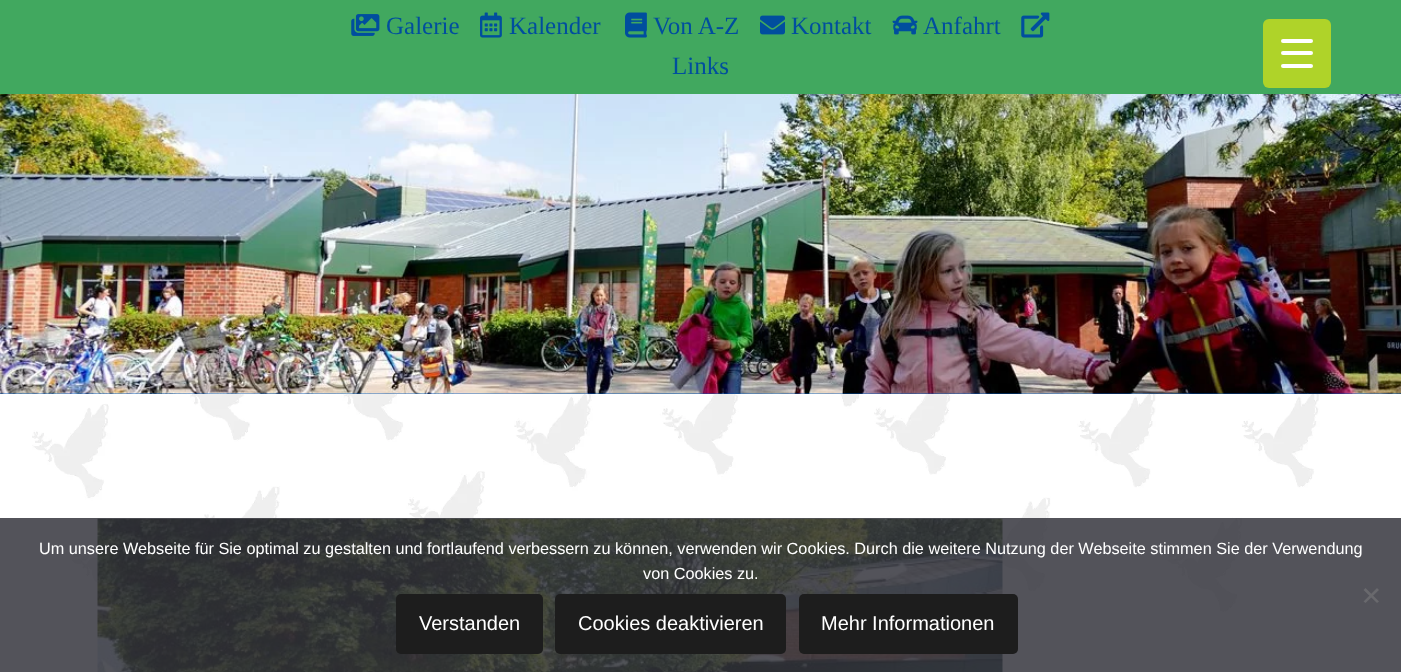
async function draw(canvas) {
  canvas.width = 1401;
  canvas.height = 672;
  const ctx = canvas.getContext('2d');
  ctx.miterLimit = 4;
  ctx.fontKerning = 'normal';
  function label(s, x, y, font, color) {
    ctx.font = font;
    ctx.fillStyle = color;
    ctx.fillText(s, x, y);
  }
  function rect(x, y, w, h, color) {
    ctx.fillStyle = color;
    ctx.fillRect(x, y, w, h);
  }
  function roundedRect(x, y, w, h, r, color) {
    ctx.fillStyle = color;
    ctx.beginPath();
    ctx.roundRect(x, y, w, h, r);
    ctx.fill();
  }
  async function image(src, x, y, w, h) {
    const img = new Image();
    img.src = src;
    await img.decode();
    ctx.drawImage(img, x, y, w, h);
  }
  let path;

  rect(0, 0, 1401, 672, '#fff');
  await image('assets/img1.png', 0, 394, 1401, 278);
  rect(0, 0, 1401, 94, '#41a85f');
  await image('assets/img2.png', 351, 14, 29, 22);
  label('Galerie', 386, 34, '25px Liberation Serif', '#004e9e');
  await image('assets/img3.png', 480, 12, 22, 26);
  label('Kalender', 509, 34, '25px Liberation Serif', '#004e9e');
  await image('assets/img4.png', 625, 12, 22, 26);
  label('Von A-Z', 653, 34, '25px Liberation Serif', '#004e9e');
  await image('assets/img5.png', 760, 15, 25, 20);
  label('Kontakt', 791, 34, '25px Liberation Serif', '#004e9e');
  await image('assets/img6.png', 892, 15, 26, 20);
  label('Anfahrt', 923, 34, '25px Liberation Serif', '#004e9e');
  await image('assets/img7.png', 1021, 12, 29, 26);
  label('Links', 672, 74, '25px Liberation Serif', '#004e9e');
  roundedRect(1263, 19, 68, 69, 6, '#afd329');
  roundedRect(1281, 51, 32, 4, 2, '#fff');
  roundedRect(1281, 39, 32, 4, 2, '#fff');
  roundedRect(1281, 64, 32, 4, 2, '#fff');
  rect(0, 393, 1401, 1, '#0058b7');
  await image('assets/img8.png', 0, 94, 1401, 300);
  await image('assets/img9.png', 97, 518, 906, 154);
  rect(0, 518, 1401, 154, '#32323ad6');
  label('Um unsere Webseite für Sie optimal zu gestalten und fortlaufend verbessern zu können, verwenden wir Cookies. Durch die weitere Nutzung der Webseite stimmen Sie der Verwendung', 39, 554, '16.25px Liberation Sans', '#fff');
  label('von Cookies zu.', 643, 579, '16.25px Liberation Sans', '#fff');
  ctx.fillStyle = '#69696d';
  path = new Path2D('M1377 588L1379 590L1365.5 603L1363.5 601.5Z');
  ctx.fill(path);
  path = new Path2D('M1363.5 590L1365.5 588L1379 601.5L1377 603Z');
  ctx.fill(path);
  roundedRect(396, 594, 147, 60, 5, '#1d1d1d');
  label('Verstanden', 419, 630, '20px Liberation Sans', '#fff');
  roundedRect(555, 594, 231, 60, 5, '#1d1d1d');
  label('Cookies deaktivieren', 578, 630, '20px Liberation Sans', '#fff');
  roundedRect(799, 594, 219, 60, 5, '#1d1d1d');
  label('Mehr Informationen', 821, 630, '20px Liberation Sans', '#fff');
}

draw(document.querySelector('canvas'));
